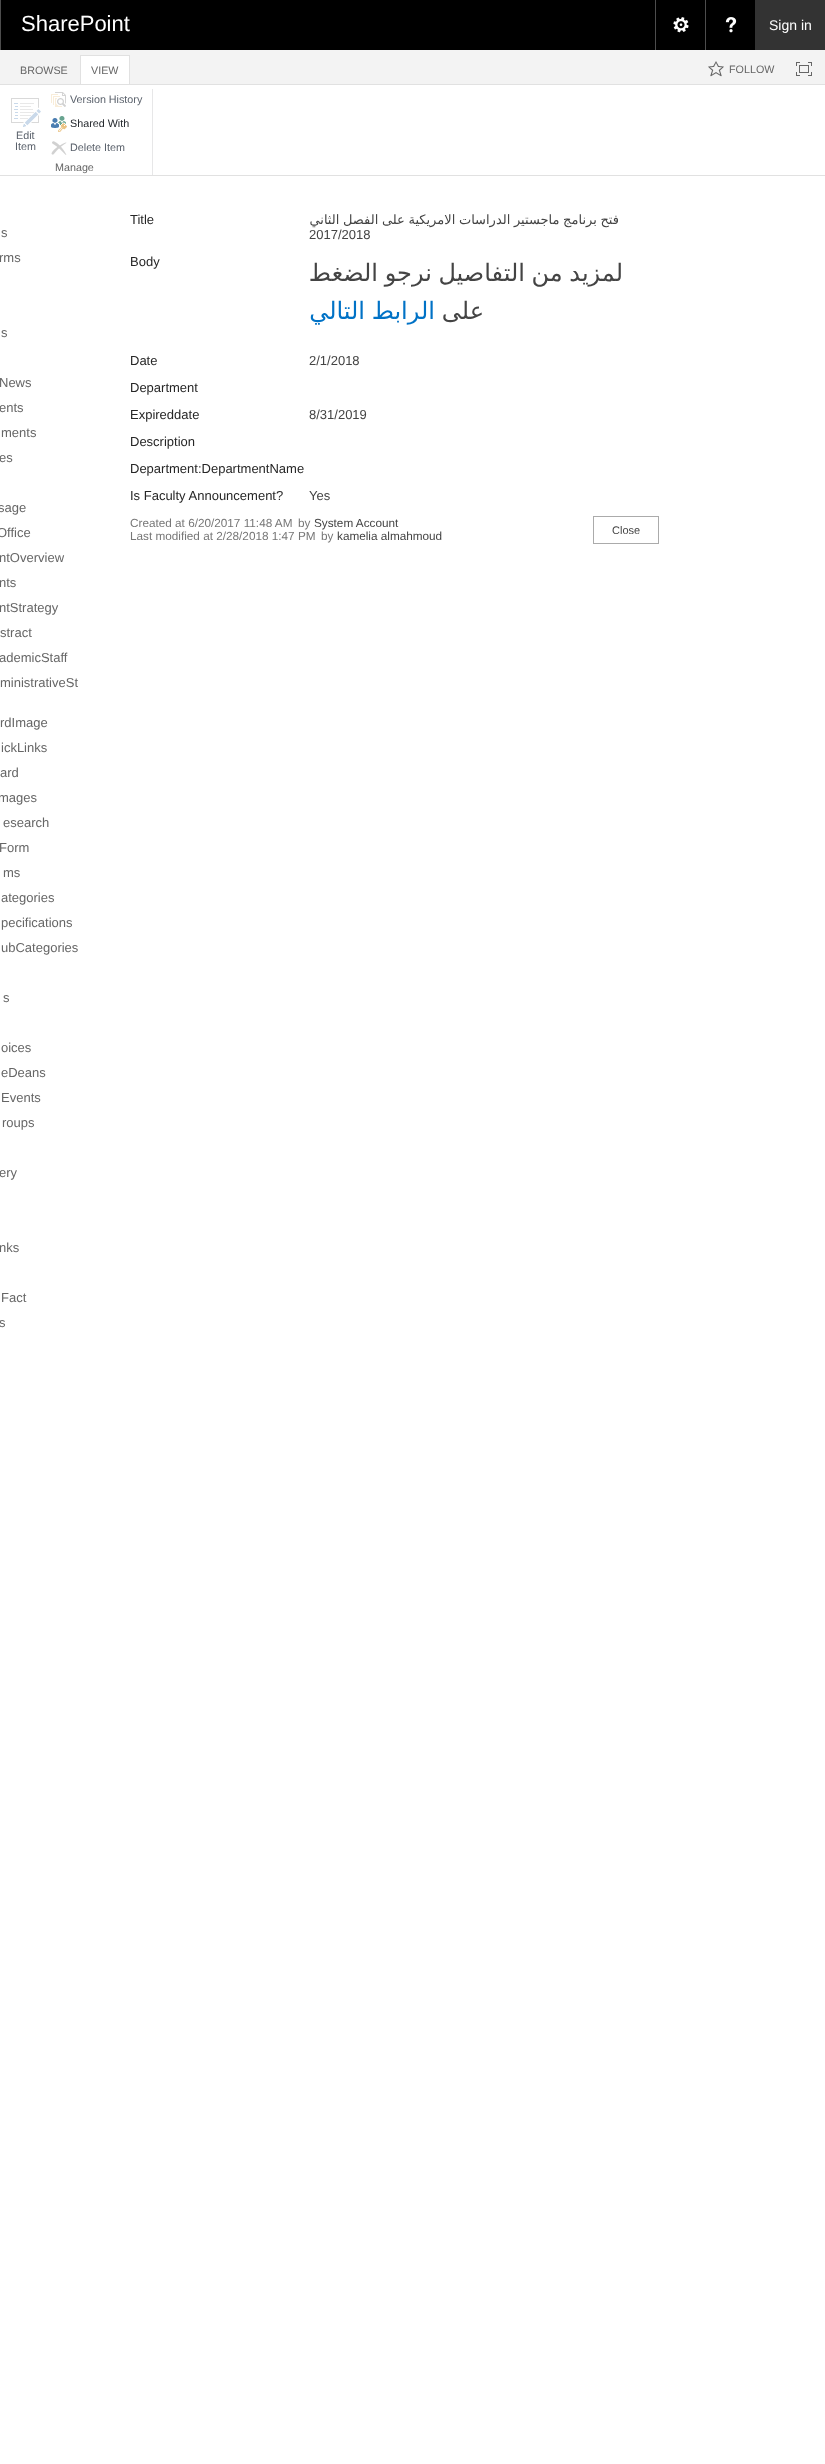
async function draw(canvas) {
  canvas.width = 825;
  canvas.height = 2464;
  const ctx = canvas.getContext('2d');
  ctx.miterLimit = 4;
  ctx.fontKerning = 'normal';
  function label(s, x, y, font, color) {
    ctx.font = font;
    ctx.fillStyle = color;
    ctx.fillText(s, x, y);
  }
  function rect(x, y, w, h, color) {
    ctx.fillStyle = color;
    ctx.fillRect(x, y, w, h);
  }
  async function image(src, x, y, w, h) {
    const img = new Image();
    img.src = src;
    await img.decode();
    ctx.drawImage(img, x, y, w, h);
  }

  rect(0, 0, 825, 2464, '#fff');
  rect(1, 0, 754, 50, '#000');
  rect(0, 0, 1, 50, '#4d4d4d');
  label('SharePoint', 21, 31, '22px Liberation Sans', '#fff');
  rect(655, 0, 1, 50, '#4d4d4d');
  await image('assets/img1.png', 673, 17, 16, 16);
  rect(705, 0, 1, 50, '#4d4d4d');
  await image('assets/img2.png', 725, 17, 12, 16);
  rect(755, 0, 70, 50, '#333');
  label('Sign in', 769, 30, '14px Liberation Sans', '#fff');
  rect(0, 50, 825, 34, '#f3f3f3');
  rect(0, 84, 825, 1, '#e1e1e1');
  label('BROWSE', 20, 74, '10.75px Liberation Sans', '#666');
  rect(81, 56, 48, 28, '#fff');
  rect(80, 55, 50, 1, '#e1e1e1');
  rect(129, 55, 1, 29, '#e1e1e1');
  rect(80, 55, 1, 29, '#e1e1e1');
  label('VIEW', 91, 74, '10.75px Liberation Sans', '#666');
  await image('assets/img3.png', 708, 61, 16, 16);
  label('FOLLOW', 729, 73, '10.75px Liberation Sans', '#666');
  await image('assets/img4.png', 796, 62, 16, 14);
  rect(0, 175, 825, 1, '#e1e1e1');
  await image('assets/img5.png', 11, 98, 30, 29);
  label('Edit', 16, 139, '10.75px Liberation Sans', '#5b626c');
  label('Item', 15, 150, '10.75px Liberation Sans', '#5b626c');
  await image('assets/img6.png', 51, 92, 15, 15);
  label('Version History', 70, 103, '10.75px Liberation Sans', '#5b626c');
  await image('assets/img7.png', 51, 116, 16, 16);
  label('Shared With', 70, 127, '10.75px Liberation Sans', '#23272c');
  await image('assets/img8.png', 51, 141, 16, 14);
  label('Delete Item', 70, 151, '10.75px Liberation Sans', '#5b626c');
  label('Manage', 55, 171, '10.75px Liberation Sans', '#666');
  rect(152, 89, 1, 86, '#e7e7e8');
  label('s', 1, 237, '13px Liberation Sans', '#666');
  label('rms', -1, 262, '13px Liberation Sans', '#666');
  label('s', 1, 337, '13px Liberation Sans', '#666');
  label('News', -1, 387, '13px Liberation Sans', '#666');
  label('ents', -1, 412, '13px Liberation Sans', '#666');
  label('ments', 1, 437, '13px Liberation Sans', '#666');
  label('es', -1, 462, '13px Liberation Sans', '#666');
  label('sage', -2, 512, '13px Liberation Sans', '#666');
  label('Office', -3, 537, '13px Liberation Sans', '#666');
  label('ntOverview', -1, 562, '13px Liberation Sans', '#666');
  label('nts', -1, 587, '13px Liberation Sans', '#666');
  label('ntStrategy', -1, 612, '13px Liberation Sans', '#666');
  label('stract', 0, 637, '13px Liberation Sans', '#666');
  label('ademicStaff', -1, 662, '13px Liberation Sans', '#666');
  label('ministrativeSt', 0, 687, '13px Liberation Sans', '#666');
  label('rdImage', 0, 727, '13px Liberation Sans', '#666');
  label('ickLinks', 1, 752, '13px Liberation Sans', '#666');
  label('ard', 0, 777, '13px Liberation Sans', '#666');
  label('mages', -2, 802, '13px Liberation Sans', '#666');
  label('esearch', 3, 827, '13px Liberation Sans', '#666');
  label('Form', -1, 852, '13px Liberation Sans', '#666');
  label('ms', 3, 877, '13px Liberation Sans', '#666');
  label('ategories', 1, 902, '13px Liberation Sans', '#666');
  label('pecifications', 1, 927, '13px Liberation Sans', '#666');
  label('ubCategories', 1, 952, '13px Liberation Sans', '#666');
  label('s', 3, 1002, '13px Liberation Sans', '#666');
  label('oices', 1, 1052, '13px Liberation Sans', '#666');
  label('eDeans', 1, 1077, '13px Liberation Sans', '#666');
  label('Events', 1, 1102, '13px Liberation Sans', '#666');
  label('roups', 2, 1127, '13px Liberation Sans', '#666');
  label('ery', -1, 1177, '13px Liberation Sans', '#666');
  label('nks', -1, 1252, '13px Liberation Sans', '#666');
  label('Fact', 1, 1302, '13px Liberation Sans', '#666');
  label('s', -1, 1327, '13px Liberation Sans', '#666');
  label('Title', 130, 224, '13px Liberation Sans', '#262626');
  ctx.wordSpacing = '-0.5px';
  ctx.direction = 'rtl';
  label('فتح برنامج ماجستير الدراسات الامريكية على الفصل الثاني', 619, 224, '13px DejaVu Sans', '#444');
  ctx.wordSpacing = '0px';
  ctx.direction = 'ltr';
  label('2017/2018', 309, 239, '13px Liberation Sans', '#444');
  label('Body', 130, 266, '13px Liberation Sans', '#262626');
  ctx.wordSpacing = '-1px';
  ctx.direction = 'rtl';
  label('لمزيد من التفاصيل نرجو الضغط', 623, 281, '24px DejaVu Sans', '#444');
  label('الرابط التالي', 435, 319, '24px DejaVu Sans', '#0072c6');
  ctx.wordSpacing = '0px';
  label('على', 484, 319, '24px DejaVu Sans', '#444');
  ctx.direction = 'ltr';
  label('Date', 130, 365, '13px Liberation Sans', '#262626');
  label('2/1/2018', 309, 365, '13px Liberation Sans', '#444');
  label('Department', 130, 392, '13px Liberation Sans', '#262626');
  label('Expireddate', 130, 419, '13px Liberation Sans', '#262626');
  label('8/31/2019', 309, 419, '13px Liberation Sans', '#444');
  label('Description', 130, 446, '13px Liberation Sans', '#262626');
  label('Department:DepartmentName', 130, 473, '13px Liberation Sans', '#262626');
  label('Is Faculty Announcement?', 130, 500, '13px Liberation Sans', '#262626');
  label('Yes', 309, 500, '13px Liberation Sans', '#444');
  label('Created at 6/20/2017 11:48 AM', 130, 527, '11.75px Liberation Sans', '#777');
  label('by', 298, 527, '11.75px Liberation Sans', '#777');
  label('System Account', 314, 527, '11.75px Liberation Sans', '#444');
  label('Last modified at 2/28/2018 1:47 PM', 130, 540, '11.75px Liberation Sans', '#777');
  label('by', 321, 540, '11.75px Liberation Sans', '#777');
  label('kamelia almahmoud', 337, 540, '11.75px Liberation Sans', '#444');
  ctx.strokeStyle = '#ababab';
  ctx.strokeRect(593.5, 516.5, 65, 27);
  label('Close', 612, 534, '11px Liberation Sans', '#444');
}

draw(document.querySelector('canvas'));
